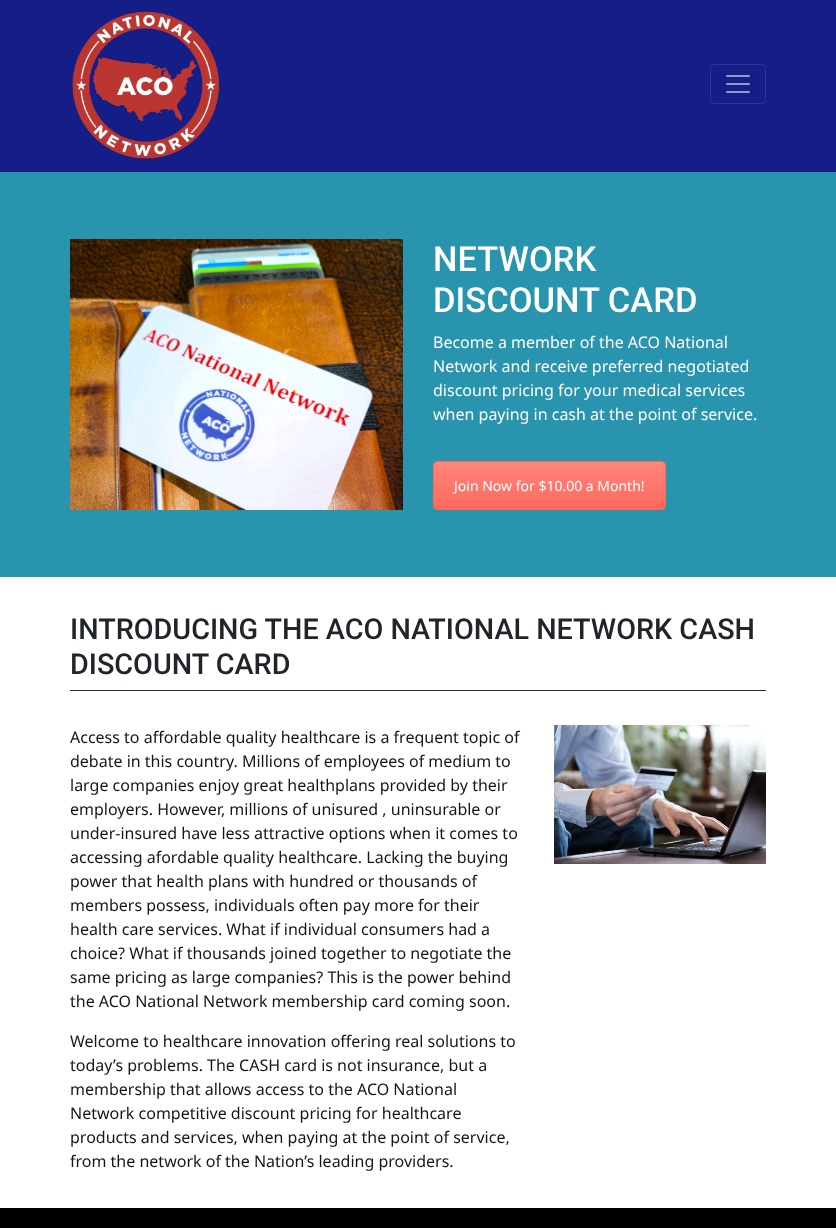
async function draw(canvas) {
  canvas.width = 836;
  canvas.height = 1228;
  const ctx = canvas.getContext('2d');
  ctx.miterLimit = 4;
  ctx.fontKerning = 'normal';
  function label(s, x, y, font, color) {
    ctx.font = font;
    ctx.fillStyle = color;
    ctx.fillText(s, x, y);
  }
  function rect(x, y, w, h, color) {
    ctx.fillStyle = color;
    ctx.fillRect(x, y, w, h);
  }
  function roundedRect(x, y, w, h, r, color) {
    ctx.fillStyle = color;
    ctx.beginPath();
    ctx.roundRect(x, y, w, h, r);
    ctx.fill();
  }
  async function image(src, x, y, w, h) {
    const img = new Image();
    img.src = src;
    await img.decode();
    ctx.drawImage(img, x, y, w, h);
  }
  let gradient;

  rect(0, 0, 836, 1228, '#fff');
  rect(0, 0, 836, 172, '#141e86');
  await image('assets/img1.png', 72, 11, 148, 148);
  ctx.beginPath();
  ctx.roundRect(710.5, 64.5, 55, 39, 3.5);
  ctx.strokeStyle = '#2c3592';
  ctx.stroke();
  await image('assets/img2.png', 726, 75, 24, 18);
  rect(0, 172, 836, 405, '#2994ae');
  await image('assets/img3.png', 70, 239, 333, 271);
  label('NETWORK', 433, 271, '500 34.5px Roboto', '#fff');
  label('DISCOUNT CARD', 433, 312, '500 34.5px Roboto', '#fff');
  label('Become a member of the ACO National', 433, 348, '16px Noto Sans', '#fff');
  label('Network and receive preferred negotiated', 433, 372, '16px Noto Sans', '#fff');
  label('discount pricing for your medical services', 433, 396, '16px Noto Sans', '#fff');
  label('when paying in cash at the point of service.', 433, 420, '16px Noto Sans', '#fff');
  roundedRect(433, 461, 233, 49, 5, '#ff675b');
  ctx.save();
  ctx.beginPath();
  ctx.roundRect(433, 461, 233, 49, 5);
  ctx.clip();
  gradient = ctx.createLinearGradient(550, 462, 550, 509);
  gradient.addColorStop(0, '#ffffff33');
  gradient.addColorStop(1, '#ffffff03');
  ctx.fillStyle = gradient;
  ctx.fillRect(433, 462, 233, 44);
  ctx.restore();
  ctx.beginPath();
  ctx.roundRect(433.5, 461.5, 232, 48, 4.5);
  ctx.strokeStyle = '#ff675b';
  ctx.stroke();
  label('Join Now for $10.00 a Month!', 454, 491, '14px Noto Sans', '#fff');
  label('INTRODUCING THE ACO NATIONAL NETWORK CASH', 70, 639, '500 28.75px Roboto', '#212529');
  label('DISCOUNT CARD', 70, 674, '500 28.75px Roboto', '#212529');
  rect(70, 690, 696, 1, '#2a2a2a');
  label('Access to affordable quality healthcare is a frequent topic of', 70, 743, '16px Noto Sans', '#161616');
  label('debate in this country. Millions of employees of medium to', 70, 767, '16px Noto Sans', '#161616');
  label('large companies enjoy great healthplans provided by their', 70, 791, '16px Noto Sans', '#161616');
  label('employers. However, millions of unisured , uninsurable or', 70, 815, '16px Noto Sans', '#161616');
  label('under-insured have less attractive options when it comes to', 70, 839, '16px Noto Sans', '#161616');
  label('accessing afordable quality healthcare. Lacking the buying', 70, 863, '16px Noto Sans', '#161616');
  label('power that health plans with hundred or thousands of', 70, 887, '16px Noto Sans', '#161616');
  label('members possess, individuals often pay more for their', 70, 911, '16px Noto Sans', '#161616');
  label('health care services. What if individual consumers had a', 70, 935, '16px Noto Sans', '#161616');
  label('choice? What if thousands joined together to negotiate the', 70, 959, '16px Noto Sans', '#161616');
  label('same pricing as large companies? This is the power behind', 70, 983, '16px Noto Sans', '#161616');
  label('the ACO National Network membership card coming soon.', 70, 1007, '16px Noto Sans', '#161616');
  label('Welcome to healthcare innovation offering real solutions to', 70, 1047, '16px Noto Sans', '#161616');
  label('today’s problems. The CASH card is not insurance, but a', 70, 1071, '16px Noto Sans', '#161616');
  label('membership that allows access to the ACO National', 70, 1095, '16px Noto Sans', '#161616');
  label('Network competitive discount pricing for healthcare', 70, 1119, '16px Noto Sans', '#161616');
  label('products and services, when paying at the point of service,', 70, 1143, '16px Noto Sans', '#161616');
  label('from the network of the Nation’s leading providers.', 70, 1167, '16px Noto Sans', '#161616');
  await image('assets/img4.png', 554, 725, 212, 139);
  rect(0, 1208, 836, 20, '#000');
}

draw(document.querySelector('canvas'));
